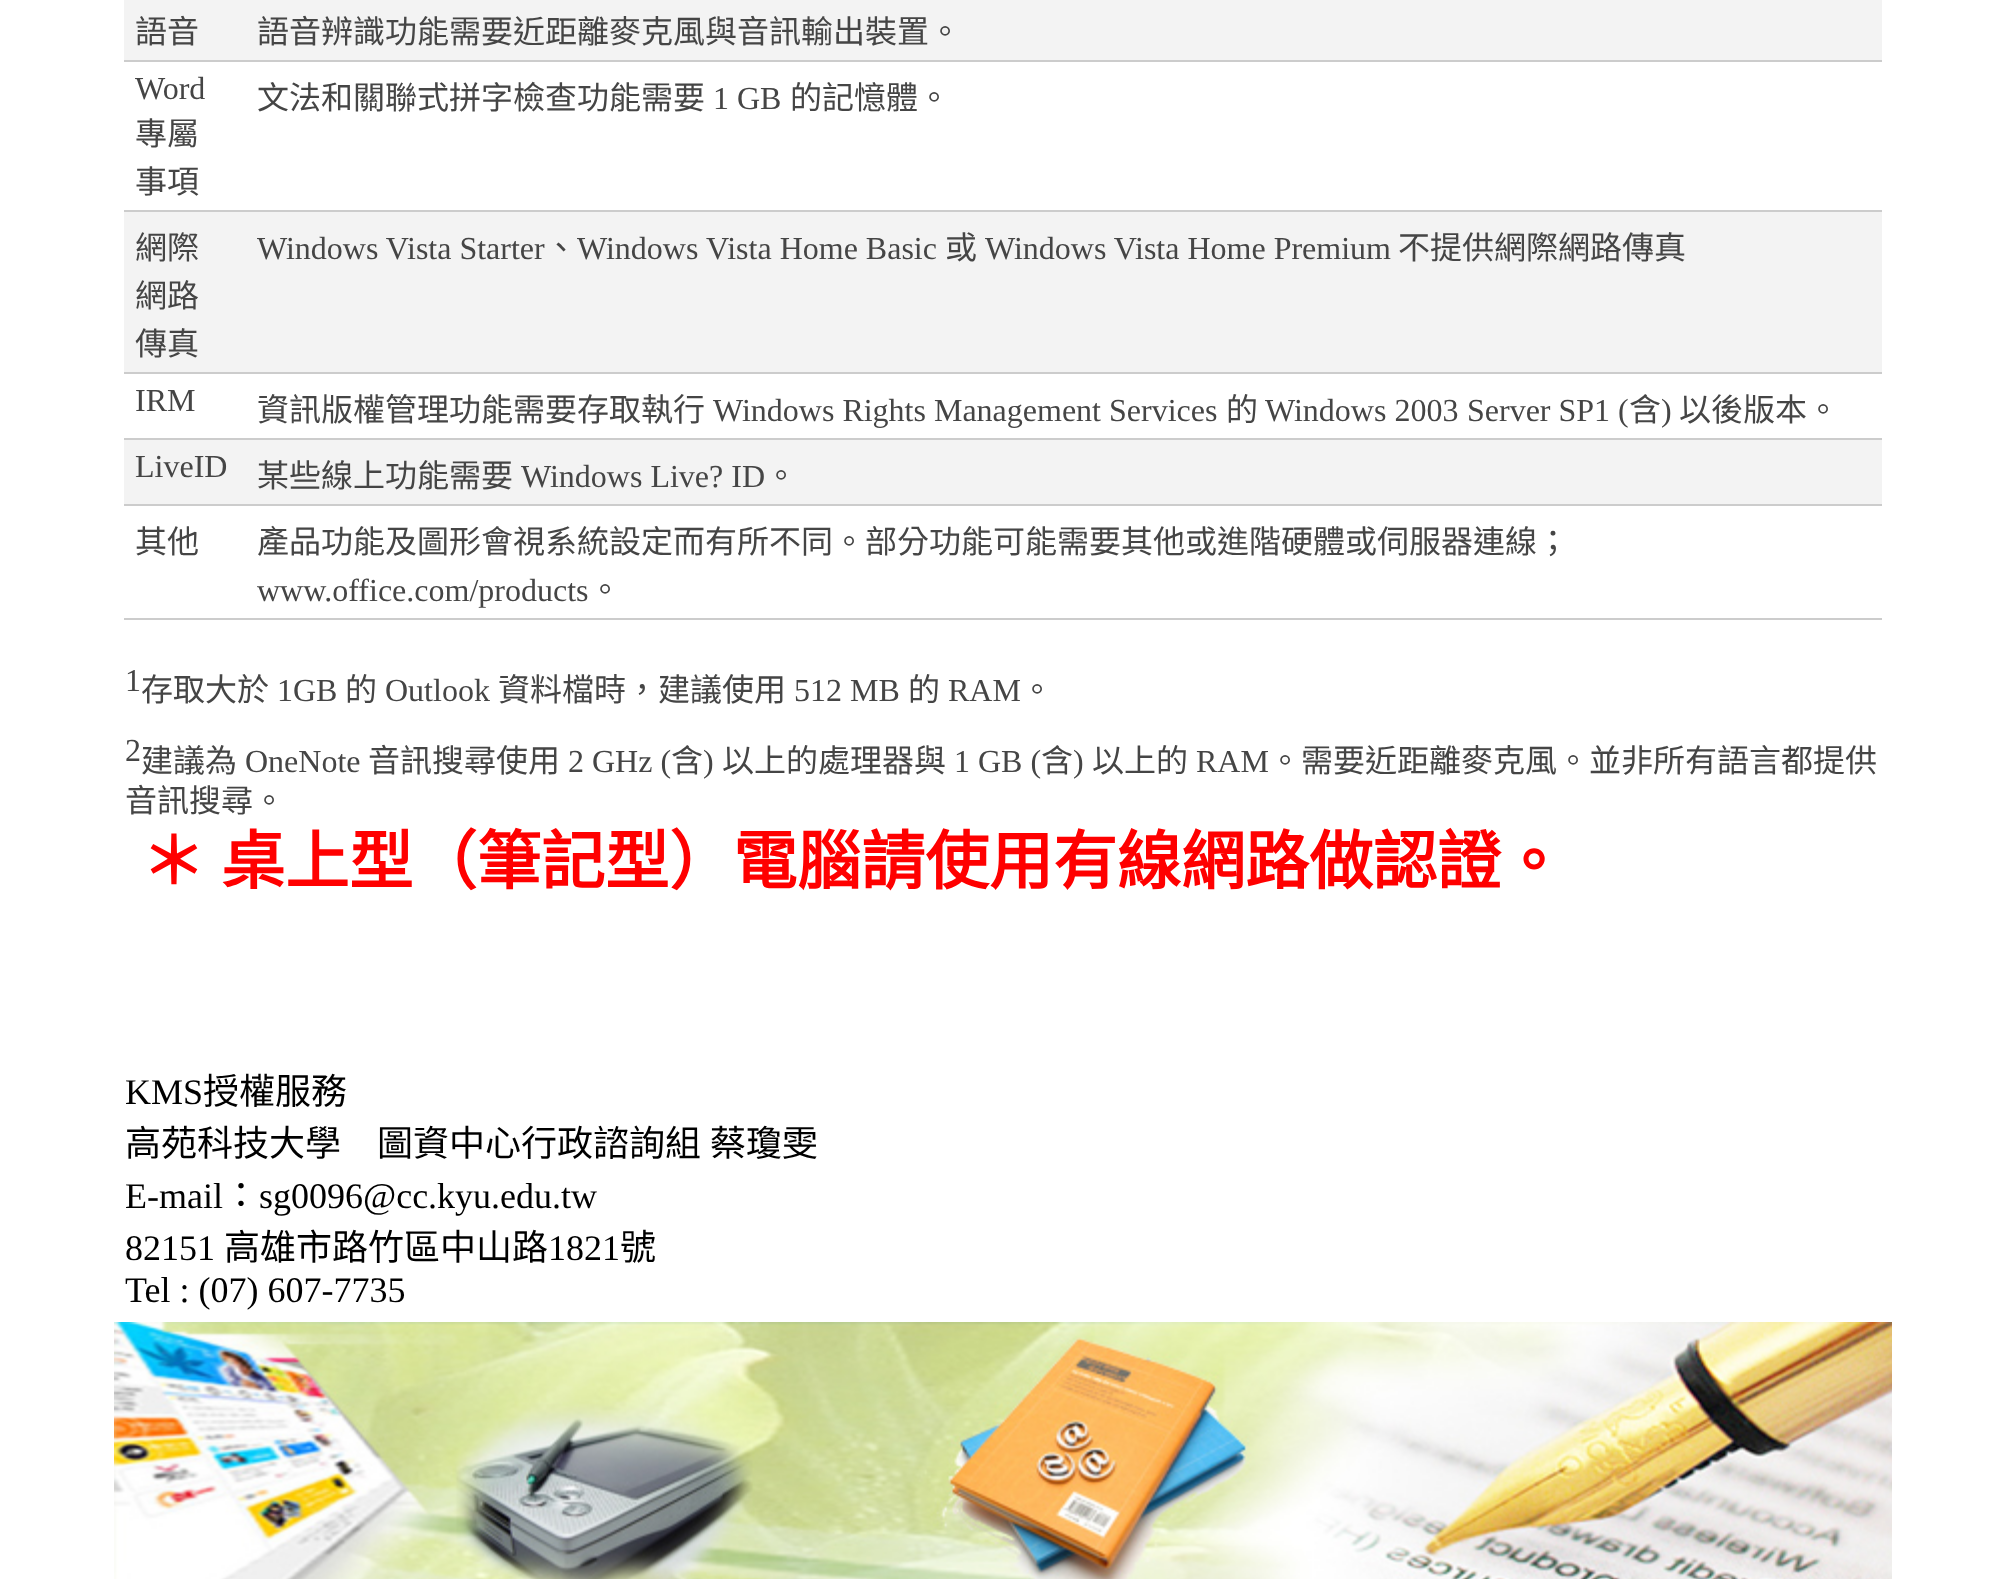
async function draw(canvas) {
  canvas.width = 2005;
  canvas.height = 1579;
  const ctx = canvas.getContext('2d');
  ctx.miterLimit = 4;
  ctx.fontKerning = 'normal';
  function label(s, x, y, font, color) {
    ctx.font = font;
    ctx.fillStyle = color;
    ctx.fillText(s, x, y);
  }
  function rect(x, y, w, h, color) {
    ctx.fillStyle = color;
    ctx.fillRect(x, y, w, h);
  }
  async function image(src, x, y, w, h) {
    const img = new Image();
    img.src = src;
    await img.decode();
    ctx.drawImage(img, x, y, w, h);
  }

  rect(0, 0, 2005, 1579, '#fff');
  rect(124, 0, 1758, 60, '#f3f3f3');
  rect(124, 60, 1758, 2, '#ccc');
  label('語音', 135, 43, '32px Noto Sans CJK TC', '#454545');
  label('語音辨識功能需要近距離麥克風與音訊輸出裝置。', 257, 43, '32px Noto Sans CJK TC', '#454545');
  label('Word', 135, 99, '32px Liberation Serif', '#454545');
  label('專屬', 135, 145, '32px Noto Sans CJK TC', '#454545');
  label('事項', 135, 193, '32px Noto Sans CJK TC', '#454545');
  label('文法和關聯式拼字檢查功能需要', 257, 109, '32px Noto Sans CJK TC', '#454545');
  label('1 GB', 713, 109, '32px Liberation Serif', '#454545');
  label('的記憶體。', 790, 109, '32px Noto Sans CJK TC', '#454545');
  rect(124, 212, 1758, 160, '#f3f3f3');
  rect(124, 210, 1758, 2, '#ccc');
  rect(124, 372, 1758, 2, '#ccc');
  label('網際', 135, 259, '32px Noto Sans CJK TC', '#454545');
  label('網路', 135, 307, '32px Noto Sans CJK TC', '#454545');
  label('傳真', 135, 355, '32px Noto Sans CJK TC', '#454545');
  label('Windows Vista Starter', 257, 259, '32px Liberation Serif', '#454545');
  label('、', 545, 259, '32px Noto Sans CJK TC', '#454545');
  label('Windows', 577, 259, '32px Liberation Serif', '#454545');
  label('Vista Home Basic', 706, 259, '32px Liberation Serif', '#454545');
  label('或', 945, 259, '32px Noto Sans CJK TC', '#454545');
  label('Windows Vista Home Premium', 985, 259, '32px Liberation Serif', '#454545');
  label('不提供網際網路傳真', 1398, 259, '32px Noto Sans CJK TC', '#454545');
  label('IRM', 135, 411, '32px Liberation Serif', '#454545');
  label('資訊版權管理功能需要存取執行', 257, 421, '32px Noto Sans CJK TC', '#454545');
  label('Windows Rights Management Services', 713, 421, '32px Liberation Serif', '#454545');
  label('的', 1226, 421, '32px Noto Sans CJK TC', '#454545');
  label('Windows 2003', 1265, 421, '32px Liberation Serif', '#454545');
  label('Server SP1 (', 1467, 421, '32px Liberation Serif', '#454545');
  label('含', 1629, 421, '32px Noto Sans CJK TC', '#454545');
  label(')', 1661, 421, '32px Liberation Serif', '#454545');
  label('以後版本。', 1679, 421, '32px Noto Sans CJK TC', '#454545');
  rect(124, 440, 1758, 64, '#f3f3f3');
  rect(124, 438, 1758, 2, '#ccc');
  rect(124, 504, 1758, 2, '#ccc');
  label('LiveID', 135, 477, '32px Liberation Serif', '#454545');
  label('某些線上功能需要', 257, 487, '32px Noto Sans CJK TC', '#454545');
  label('Windows Live? ID', 521, 487, '32px Liberation Serif', '#454545');
  label('。', 765, 487, '32px Noto Sans CJK TC', '#454545');
  rect(124, 618, 1758, 2, '#ccc');
  label('其他', 135, 553, '32px Noto Sans CJK TC', '#454545');
  label('產品功能及圖形會視系統設定而有所不同。部分功能可能需要其他或進階硬體或伺服器連線；', 257, 553, '32px Noto Sans CJK TC', '#454545');
  label('www.office.com/products', 257, 601, '32px Liberation Serif', '#454545');
  label('。', 589, 601, '32px Noto Sans CJK TC', '#454545');
  label('1', 125, 691, '32px Liberation Serif', '#454545');
  label('存取大於', 141, 701, '32px Noto Sans CJK TC', '#454545');
  label('1GB', 277, 701, '32px Liberation Serif', '#454545');
  label('的', 345, 701, '32px Noto Sans CJK TC', '#454545');
  label('Outlook', 385, 701, '32px Liberation Serif', '#454545');
  label('資料檔時，建議使用', 498, 701, '32px Noto Sans CJK TC', '#454545');
  label('512 MB', 794, 701, '32px Liberation Serif', '#454545');
  label('的', 908, 701, '32px Noto Sans CJK TC', '#454545');
  label('RAM', 948, 701, '32px Liberation Serif', '#454545');
  label('。', 1021, 701, '32px Noto Sans CJK TC', '#454545');
  label('2', 125, 761, '32px Liberation Serif', '#454545');
  label('建議為', 141, 772, '32px Noto Sans CJK TC', '#454545');
  label('OneNote', 245, 772, '32px Liberation Serif', '#454545');
  label('音訊搜尋使用', 368, 772, '32px Noto Sans CJK TC', '#454545');
  label('2 GHz (', 568, 772, '32px Liberation Serif', '#454545');
  label('含', 671, 772, '32px Noto Sans CJK TC', '#454545');
  label(')', 703, 772, '32px Liberation Serif', '#454545');
  label('以上的處理器與', 722, 772, '32px Noto Sans CJK TC', '#454545');
  label('1 GB (', 954, 772, '32px Liberation Serif', '#454545');
  label('含', 1041, 772, '32px Noto Sans CJK TC', '#454545');
  label(')', 1073, 772, '32px Liberation Serif', '#454545');
  label('以上的', 1092, 772, '32px Noto Sans CJK TC', '#454545');
  label('RAM', 1196, 772, '32px Liberation Serif', '#454545');
  label('。需要近距離麥克風。並非所有語言都提供', 1269, 772, '32px Noto Sans CJK TC', '#454545');
  label('音訊搜尋。', 125, 812, '32px Noto Sans CJK TC', '#454545');
  label('＊', 141, 884, 'bold 64px Noto Sans CJK TC', '#f00');
  label('桌上型（筆記型）電腦請使用有線網路做認證。', 221, 884, 'bold 64px Noto Sans CJK TC', '#f00');
  label('KMS', 125, 1104, '36px Liberation Serif', '#000');
  label('授權服務', 203, 1104, '36px Noto Sans CJK TC', '#000');
  ctx.wordSpacing = '1px';
  label('高苑科技大學　圖資中心行政諮詢組 蔡瓊雯', 125, 1156, '36px Noto Sans CJK TC', '#000');
  ctx.wordSpacing = '0px';
  label('E-mail', 125, 1208, '36px Liberation Serif', '#000');
  label('：', 223, 1208, '36px Noto Sans CJK TC', '#000');
  label('sg0096@cc.kyu.edu.tw', 259, 1208, '36px Liberation Serif', '#000');
  label('82151', 125, 1260, '36px Liberation Serif', '#000');
  label('高雄市路竹區中山路', 224, 1260, '36px Noto Sans CJK TC', '#000');
  label('1821', 548, 1260, '36px Liberation Serif', '#000');
  label('號', 620, 1260, '36px Noto Sans CJK TC', '#000');
  label('Tel : (07) 607-7735', 125, 1302, '36px Liberation Serif', '#000');
  await image('assets/img1.png', 114, 1322, 1778, 257);
}

draw(document.querySelector('canvas'));
